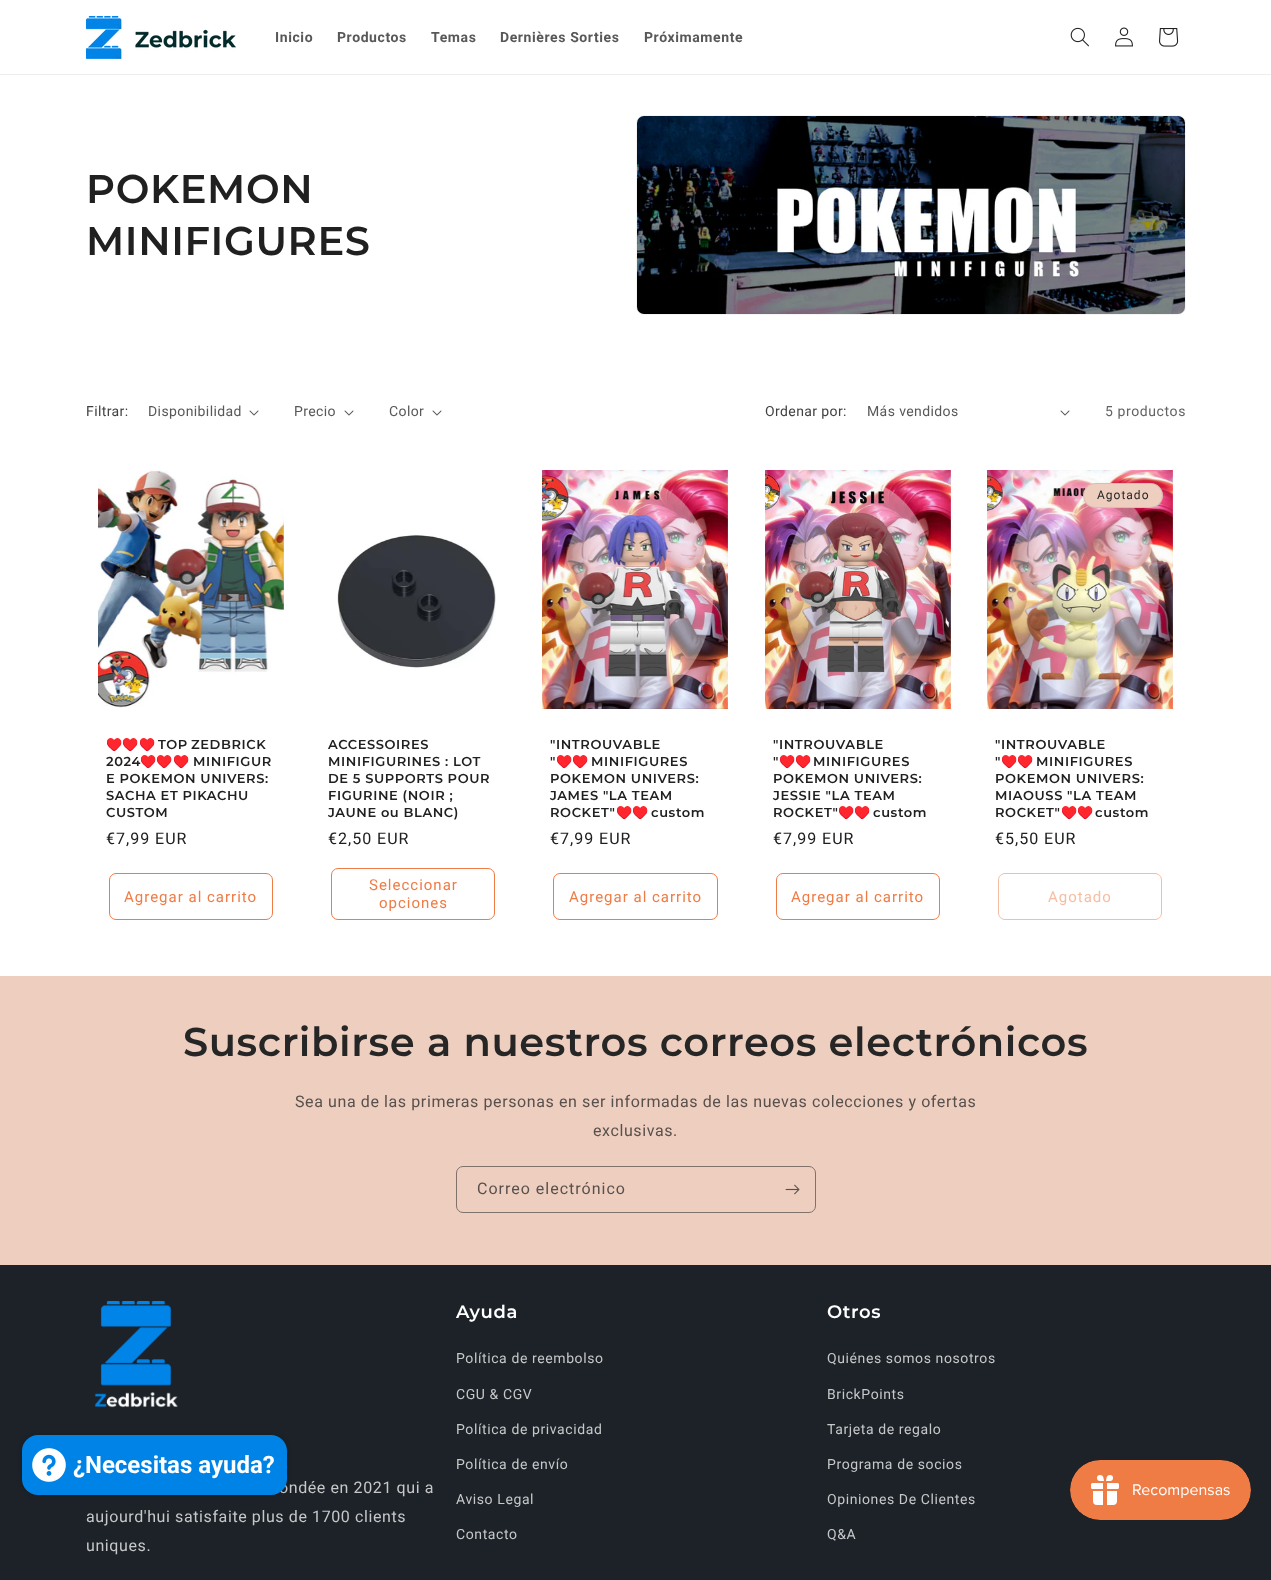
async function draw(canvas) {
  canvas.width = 1271;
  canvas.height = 1580;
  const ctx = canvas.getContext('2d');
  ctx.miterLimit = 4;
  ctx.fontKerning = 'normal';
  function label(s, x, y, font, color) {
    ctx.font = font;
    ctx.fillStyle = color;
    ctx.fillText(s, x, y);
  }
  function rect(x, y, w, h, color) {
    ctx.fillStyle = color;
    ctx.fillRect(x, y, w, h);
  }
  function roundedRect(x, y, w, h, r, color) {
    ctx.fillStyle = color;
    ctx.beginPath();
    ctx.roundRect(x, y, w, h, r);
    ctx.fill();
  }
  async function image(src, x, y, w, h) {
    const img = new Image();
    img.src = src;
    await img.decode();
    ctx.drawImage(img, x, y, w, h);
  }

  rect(0, 0, 1271, 1580, '#fff');
  rect(0, 74, 1271, 1, '#ededed');
  await image('assets/img1.png', 86, 16, 150, 43);
  ctx.letterSpacing = '0.6px';
  label('Inicio', 275, 42, 'bold 14px Roboto', '#595858');
  label('Productos', 337, 42, 'bold 14px Roboto', '#595858');
  label('Temas', 431, 42, 'bold 14px Roboto', '#595858');
  label('Dernières Sorties', 500, 42, 'bold 14px Roboto', '#595858');
  label('Próximamente', 644, 42, 'bold 14px Roboto', '#595858');
  await image('assets/img2.png', 1070, 27, 19, 20);
  await image('assets/img3.png', 1115, 27, 18, 20);
  await image('assets/img4.png', 1159, 28, 20, 19);
  label('POKEMON', 86, 203, '600 40px Montserrat', '#212020');
  label('MINIFIGURES', 86, 255, '600 40px Montserrat', '#212020');
  ctx.beginPath();
  ctx.roundRect(636.5, 115.5, 549, 199, 7.5);
  ctx.strokeStyle = '#f4f4f4';
  ctx.stroke();
  await image('assets/img5.png', 637, 116, 548, 198);
  ctx.letterSpacing = '0.4px';
  label('Filtrar:', 86, 416, '14px Roboto', '#424141');
  label('Disponibilidad', 148, 416, '14px Roboto', '#595858');
  await image('assets/img6.png', 249, 410, 10, 6);
  label('Precio', 294, 416, '14px Roboto', '#595858');
  await image('assets/img6.png', 344, 410, 10, 6);
  label('Color', 389, 416, '14px Roboto', '#595858');
  await image('assets/img6.png', 432, 410, 10, 6);
  label('Ordenar por:', 765, 416, '14px Roboto', '#424141');
  label('Más vendidos', 867, 416, '14px Roboto', '#595858');
  await image('assets/img6.png', 1060, 410, 10, 6);
  ctx.letterSpacing = '0.6px';
  label('5 productos', 1105, 416, '14px Roboto', '#646363');
  await image('assets/img7.png', 98, 470, 186, 238);
  label('♥️♥️♥️', 106, 749, 'bold 13px Noto Color Emoji', '#212020');
  ctx.wordSpacing = '-1px';
  label('TOP ZEDBRICK', 158, 749, '600 13px Montserrat', '#212020');
  ctx.wordSpacing = '0px';
  label('2024', 106, 766, '600 13px Montserrat', '#212020');
  label('♥️♥️♥️', 140, 766, 'bold 13px Noto Color Emoji', '#212020');
  label('MINIFIGUR', 193, 766, '600 13px Montserrat', '#212020');
  label('E POKEMON UNIVERS:', 106, 783, '600 13px Montserrat', '#212020');
  label('SACHA ET PIKACHU', 106, 800, '600 13px Montserrat', '#212020');
  label('CUSTOM', 106, 817, '600 13px Montserrat', '#212020');
  ctx.letterSpacing = '1px';
  label('€7,99 EUR', 106, 844, '16px Roboto', '#212020');
  ctx.beginPath();
  ctx.roundRect(109.5, 873.5, 163, 46, 6.5);
  ctx.strokeStyle = '#ef7b45';
  ctx.stroke();
  label('Agregar al carrito', 124, 902, '15px Roboto', '#ef7b45');
  await image('assets/img8.png', 337, 534, 159, 134);
  ctx.letterSpacing = '0.6px';
  label('ACCESSOIRES', 328, 749, '600 13px Montserrat', '#212020');
  label('MINIFIGURINES : LOT', 328, 766, '600 13px Montserrat', '#212020');
  label('DE 5 SUPPORTS POUR', 328, 783, '600 13px Montserrat', '#212020');
  label('FIGURINE (NOIR ;', 328, 800, '600 13px Montserrat', '#212020');
  label('JAUNE ou BLANC)', 328, 817, '600 13px Montserrat', '#212020');
  ctx.letterSpacing = '1px';
  label('€2,50 EUR', 328, 844, '16px Roboto', '#212020');
  ctx.beginPath();
  ctx.roundRect(331.5, 868.5, 163, 51, 6.5);
  ctx.stroke();
  label('Seleccionar', 369, 890, '15px Roboto', '#ef7b45');
  label('opciones', 379, 908, '15px Roboto', '#ef7b45');
  await image('assets/img9.png', 542, 470, 186, 239);
  ctx.letterSpacing = '0.6px';
  label('"INTROUVABLE', 550, 749, '600 13px Montserrat', '#212020');
  label('"', 550, 766, '600 13px Montserrat', '#212020');
  label('♥️♥️', 556, 766, 'bold 13px Noto Color Emoji', '#212020');
  label('MINIFIGURES', 591, 766, '600 13px Montserrat', '#212020');
  label('POKEMON UNIVERS:', 550, 783, '600 13px Montserrat', '#212020');
  label('JAMES "LA TEAM', 550, 800, '600 13px Montserrat', '#212020');
  label('ROCKET"', 550, 817, '600 13px Montserrat', '#212020');
  label('♥️♥️', 616, 817, 'bold 13px Noto Color Emoji', '#212020');
  label('custom', 651, 817, '600 13px Montserrat', '#212020');
  ctx.letterSpacing = '1px';
  label('€7,99 EUR', 550, 844, '16px Roboto', '#212020');
  ctx.beginPath();
  ctx.roundRect(553.5, 873.5, 164, 46, 6.5);
  ctx.stroke();
  label('Agregar al carrito', 569, 902, '15px Roboto', '#ef7b45');
  await image('assets/img10.png', 765, 470, 186, 239);
  ctx.letterSpacing = '0.6px';
  label('"INTROUVABLE', 773, 749, '600 13px Montserrat', '#212020');
  label('"', 773, 766, '600 13px Montserrat', '#212020');
  label('♥️♥️', 779, 766, 'bold 13px Noto Color Emoji', '#212020');
  label('MINIFIGURES', 813, 766, '600 13px Montserrat', '#212020');
  label('POKEMON UNIVERS:', 773, 783, '600 13px Montserrat', '#212020');
  label('JESSIE "LA TEAM', 773, 800, '600 13px Montserrat', '#212020');
  label('ROCKET"', 773, 817, '600 13px Montserrat', '#212020');
  label('♥️♥️', 838, 817, 'bold 13px Noto Color Emoji', '#212020');
  label('custom', 873, 817, '600 13px Montserrat', '#212020');
  ctx.letterSpacing = '1px';
  label('€7,99 EUR', 773, 844, '16px Roboto', '#212020');
  ctx.beginPath();
  ctx.roundRect(776.5, 873.5, 163, 46, 6.5);
  ctx.stroke();
  label('Agregar al carrito', 791, 902, '15px Roboto', '#ef7b45');
  await image('assets/img11.png', 987, 470, 186, 239);
  roundedRect(1083, 483, 80, 25, 12.5, '#edcebf');
  ctx.beginPath();
  ctx.roundRect(1083.5, 483.5, 79, 24, 12);
  ctx.strokeStyle = '#2626261a';
  ctx.stroke();
  label('Agotado', 1097, 499, '12px Roboto', '#262626');
  ctx.letterSpacing = '0.6px';
  label('"INTROUVABLE', 995, 749, '600 13px Montserrat', '#212020');
  label('"', 995, 766, '600 13px Montserrat', '#212020');
  label('♥️♥️', 1001, 766, 'bold 13px Noto Color Emoji', '#212020');
  label('MINIFIGURES', 1036, 766, '600 13px Montserrat', '#212020');
  label('POKEMON UNIVERS:', 995, 783, '600 13px Montserrat', '#212020');
  label('MIAOUSS "LA TEAM', 995, 800, '600 13px Montserrat', '#212020');
  label('ROCKET"', 995, 817, '600 13px Montserrat', '#212020');
  label('♥️♥️', 1061, 817, 'bold 13px Noto Color Emoji', '#212020');
  label('custom', 1095, 817, '600 13px Montserrat', '#212020');
  ctx.letterSpacing = '1px';
  label('€5,50 EUR', 995, 844, '16px Roboto', '#212020');
  ctx.beginPath();
  ctx.roundRect(998.5, 873.5, 163, 46, 6.5);
  ctx.strokeStyle = '#f7bda2';
  ctx.stroke();
  label('Agotado', 1048, 902, '15px Roboto', '#f7bda2');
  rect(0, 976, 1271, 289, '#edcebf');
  ctx.letterSpacing = '0.6px';
  label('Suscribirse a nuestros correos electrónicos', 183, 1056, '600 40px Montserrat', '#262626');
  label('Sea una de las primeras personas en ser informadas de las nuevas colecciones y ofertas', 295, 1107, '16px Roboto', '#58504c');
  label('exclusivas.', 593, 1136, '16px Roboto', '#58504c');
  ctx.beginPath();
  ctx.roundRect(456.5, 1166.5, 359, 46, 6.5);
  ctx.strokeStyle = '#80726b';
  ctx.stroke();
  ctx.letterSpacing = '1px';
  label('Correo electrónico', 477, 1194, '16px Roboto', '#58504c');
  await image('assets/img12.png', 785, 1184, 15, 11);
  rect(0, 1265, 1271, 315, '#1c2228');
  await image('assets/img13.png', 94, 1301, 84, 107);
  ctx.letterSpacing = '0.6px';
  label('ondée en 2021 qui a', 279, 1493, '16px Roboto', '#c6c8c9');
  label('aujourd\'hui satisfaite plus de 1700 clients', 86, 1522, '16px Roboto', '#c6c8c9');
  label('uniques.', 86, 1551, '16px Roboto', '#c6c8c9');
  label('Ayuda', 456, 1318, '600 18px Montserrat', '#fff');
  label('Política de reembolso', 456, 1363, '14px Roboto', '#c6c8c9');
  label('CGU & CGV', 456, 1399, '14px Roboto', '#c6c8c9');
  label('Política de privacidad', 456, 1434, '14px Roboto', '#c6c8c9');
  label('Política de envío', 456, 1469, '14px Roboto', '#c6c8c9');
  label('Aviso Legal', 456, 1504, '14px Roboto', '#c6c8c9');
  label('Contacto', 456, 1539, '14px Roboto', '#c6c8c9');
  label('Otros', 827, 1318, '600 18px Montserrat', '#fff');
  label('Quiénes somos nosotros', 827, 1363, '14px Roboto', '#c6c8c9');
  label('BrickPoints', 827, 1399, '14px Roboto', '#c6c8c9');
  label('Tarjeta de regalo', 827, 1434, '14px Roboto', '#c6c8c9');
  label('Programa de socios', 827, 1469, '14px Roboto', '#c6c8c9');
  label('Opiniones De Clientes', 827, 1504, '14px Roboto', '#c6c8c9');
  label('Q&A', 827, 1539, '14px Roboto', '#c6c8c9');
  ctx.fillStyle = '#00000026';
  ctx.filter = 'blur(2.5px)';
  ctx.beginPath();
  ctx.roundRect(22, 1435, 265, 60, 16);
  ctx.fill();
  ctx.filter = 'none';
  roundedRect(22, 1435, 265, 60, 16, '#0083e6');
  await image('assets/img14.png', 32, 1448, 34, 34);
  ctx.letterSpacing = '0px';
  label('¿Necesitas ayuda?', 73, 1473, 'bold 24px Roboto', '#fff');
  await image('assets/img15.png', 1070, 1460, 181, 60);
}

draw(document.querySelector('canvas'));
